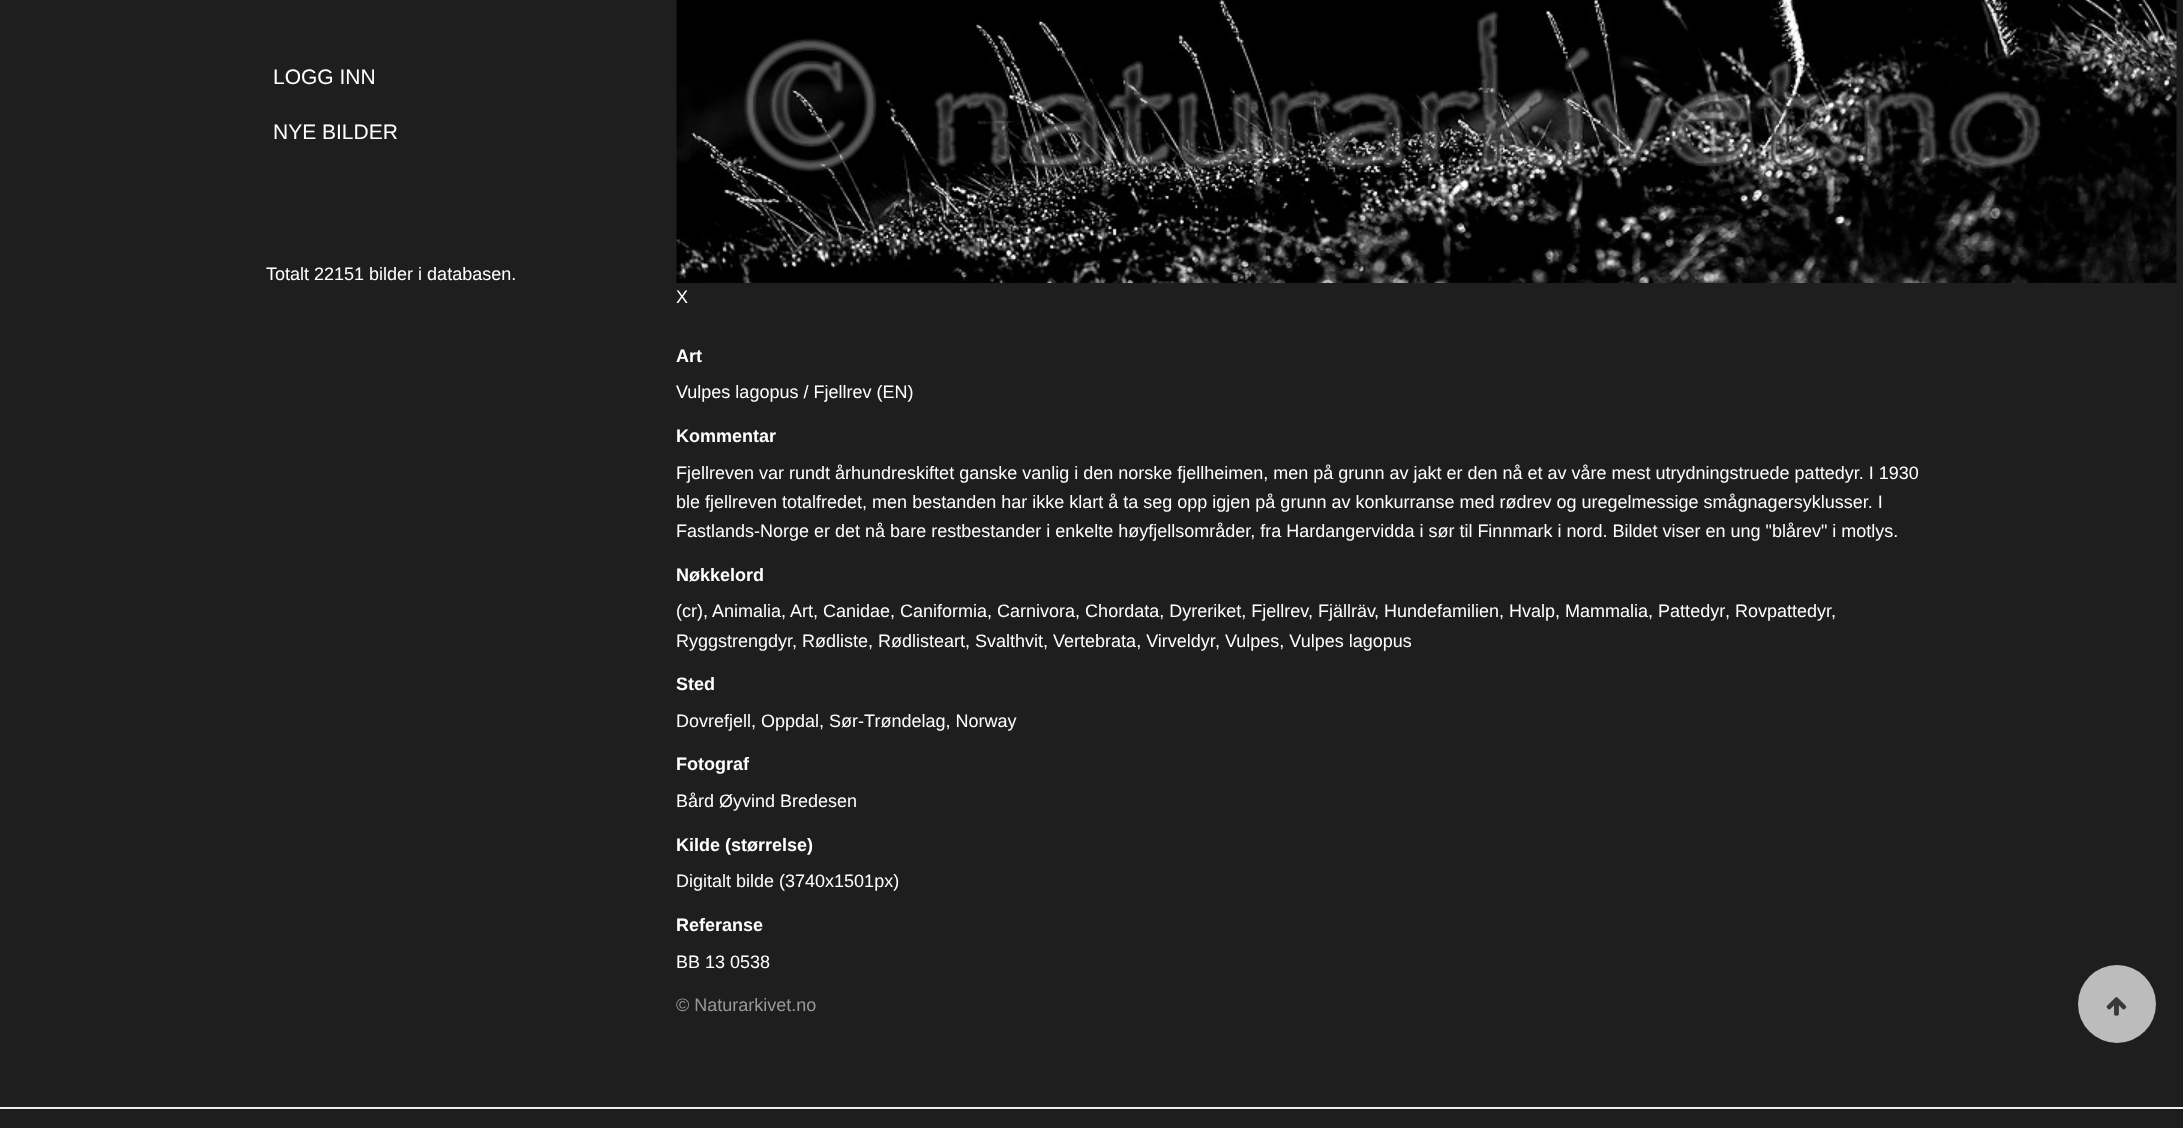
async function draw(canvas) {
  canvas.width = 2183;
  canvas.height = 1128;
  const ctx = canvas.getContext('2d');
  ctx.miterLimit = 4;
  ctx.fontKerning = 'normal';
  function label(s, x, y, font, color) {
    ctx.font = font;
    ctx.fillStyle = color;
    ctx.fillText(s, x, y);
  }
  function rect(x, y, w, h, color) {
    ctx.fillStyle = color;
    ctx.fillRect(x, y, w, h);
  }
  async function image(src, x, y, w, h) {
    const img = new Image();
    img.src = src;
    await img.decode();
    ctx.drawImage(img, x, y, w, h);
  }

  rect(0, 0, 2183, 1128, '#1e1e1e');
  label('LOGG INN', 273, 84, '21px Liberation Sans', '#fff');
  label('NYE BILDER', 273, 139, '21px Liberation Sans', '#fff');
  label('Totalt 22151 bilder i databasen.', 266, 280, '18px Liberation Sans', '#fff');
  await image('assets/img1.png', 676, 0, 1501, 283);
  label('X', 676, 303, '18px Liberation Sans', '#fff');
  label('Art', 676, 362, 'bold 18px Liberation Sans', '#fff');
  label('Vulpes lagopus / Fjellrev (EN)', 676, 398, '18px Liberation Sans', '#fff');
  label('Kommentar', 676, 442, 'bold 18px Liberation Sans', '#fff');
  label('Fjellreven var rundt århundreskiftet ganske vanlig i den norske fjellheimen, men på grunn av jakt er den nå et av våre mest utrydningstruede pattedyr. I 1930', 676, 479, '18px Liberation Sans', '#fff');
  label('ble fjellreven totalfredet, men bestanden har ikke klart å ta seg opp igjen på grunn av konkurranse med rødrev og uregelmessige smågnagersyklusser. I', 676, 508, '18px Liberation Sans', '#fff');
  label('Fastlands-Norge er det nå bare restbestander i enkelte høyfjellsområder, fra Hardangervidda i sør til Finnmark i nord. Bildet viser en ung "blårev" i motlys.', 676, 537, '18px Liberation Sans', '#fff');
  label('Nøkkelord', 676, 581, 'bold 18px Liberation Sans', '#fff');
  label('(cr),', 676, 617, '18px Liberation Sans', '#fff');
  label('Animalia,', 712, 617, '18px Liberation Sans', '#fff');
  label('Art, Canidae, Caniformia, Carnivora, Chordata, Dyreriket, Fjellrev', 790, 617, '18px Liberation Sans', '#fff');
  label(', Fjällräv', 1308, 617, '18px Liberation Sans', '#fff');
  label(', Hundefamilien, Hvalp, Mammalia, Pattedyr', 1374, 617, '18px Liberation Sans', '#fff');
  label(', Rovpattedyr', 1725, 617, '18px Liberation Sans', '#fff');
  label(',', 1831, 617, '18px Liberation Sans', '#fff');
  label('Ryggstrengdyr', 676, 647, '18px Liberation Sans', '#fff');
  label(', Rødliste, Rødlisteart, Svalthvit, Vertebrata, Virveldyr', 792, 647, '18px Liberation Sans', '#fff');
  label(', Vulpes, Vulpes lagopus', 1215, 647, '18px Liberation Sans', '#fff');
  label('Sted', 676, 690, 'bold 18px Liberation Sans', '#fff');
  label('Dovrefjell, Oppdal, Sør-Trøndelag, Norway', 676, 727, '18px Liberation Sans', '#fff');
  label('Fotograf', 676, 770, 'bold 18px Liberation Sans', '#fff');
  label('Bård Øyvind Bredesen', 676, 807, '18px Liberation Sans', '#fff');
  label('Kilde (størrelse)', 676, 851, 'bold 18px Liberation Sans', '#fff');
  label('Digitalt bilde (3740x1501px)', 676, 887, '18px Liberation Sans', '#fff');
  label('Referanse', 676, 931, 'bold 18px Liberation Sans', '#fff');
  label('BB 13 0538', 676, 968, '18px Liberation Sans', '#fff');
  label('© Naturarkivet.no', 676, 1011, '18px Liberation Sans', '#999');
  ctx.fillStyle = '#bcbcbc';
  ctx.beginPath();
  ctx.arc(2117, 1004, 39, 0, 2 * Math.PI);
  ctx.fill();
  await image('assets/img2.png', 2106, 997, 21, 19);
  rect(0, 1107, 2183, 2, '#eee');
  rect(0, 1109, 2183, 2, '#1b1b1b');
}

draw(document.querySelector('canvas'));
